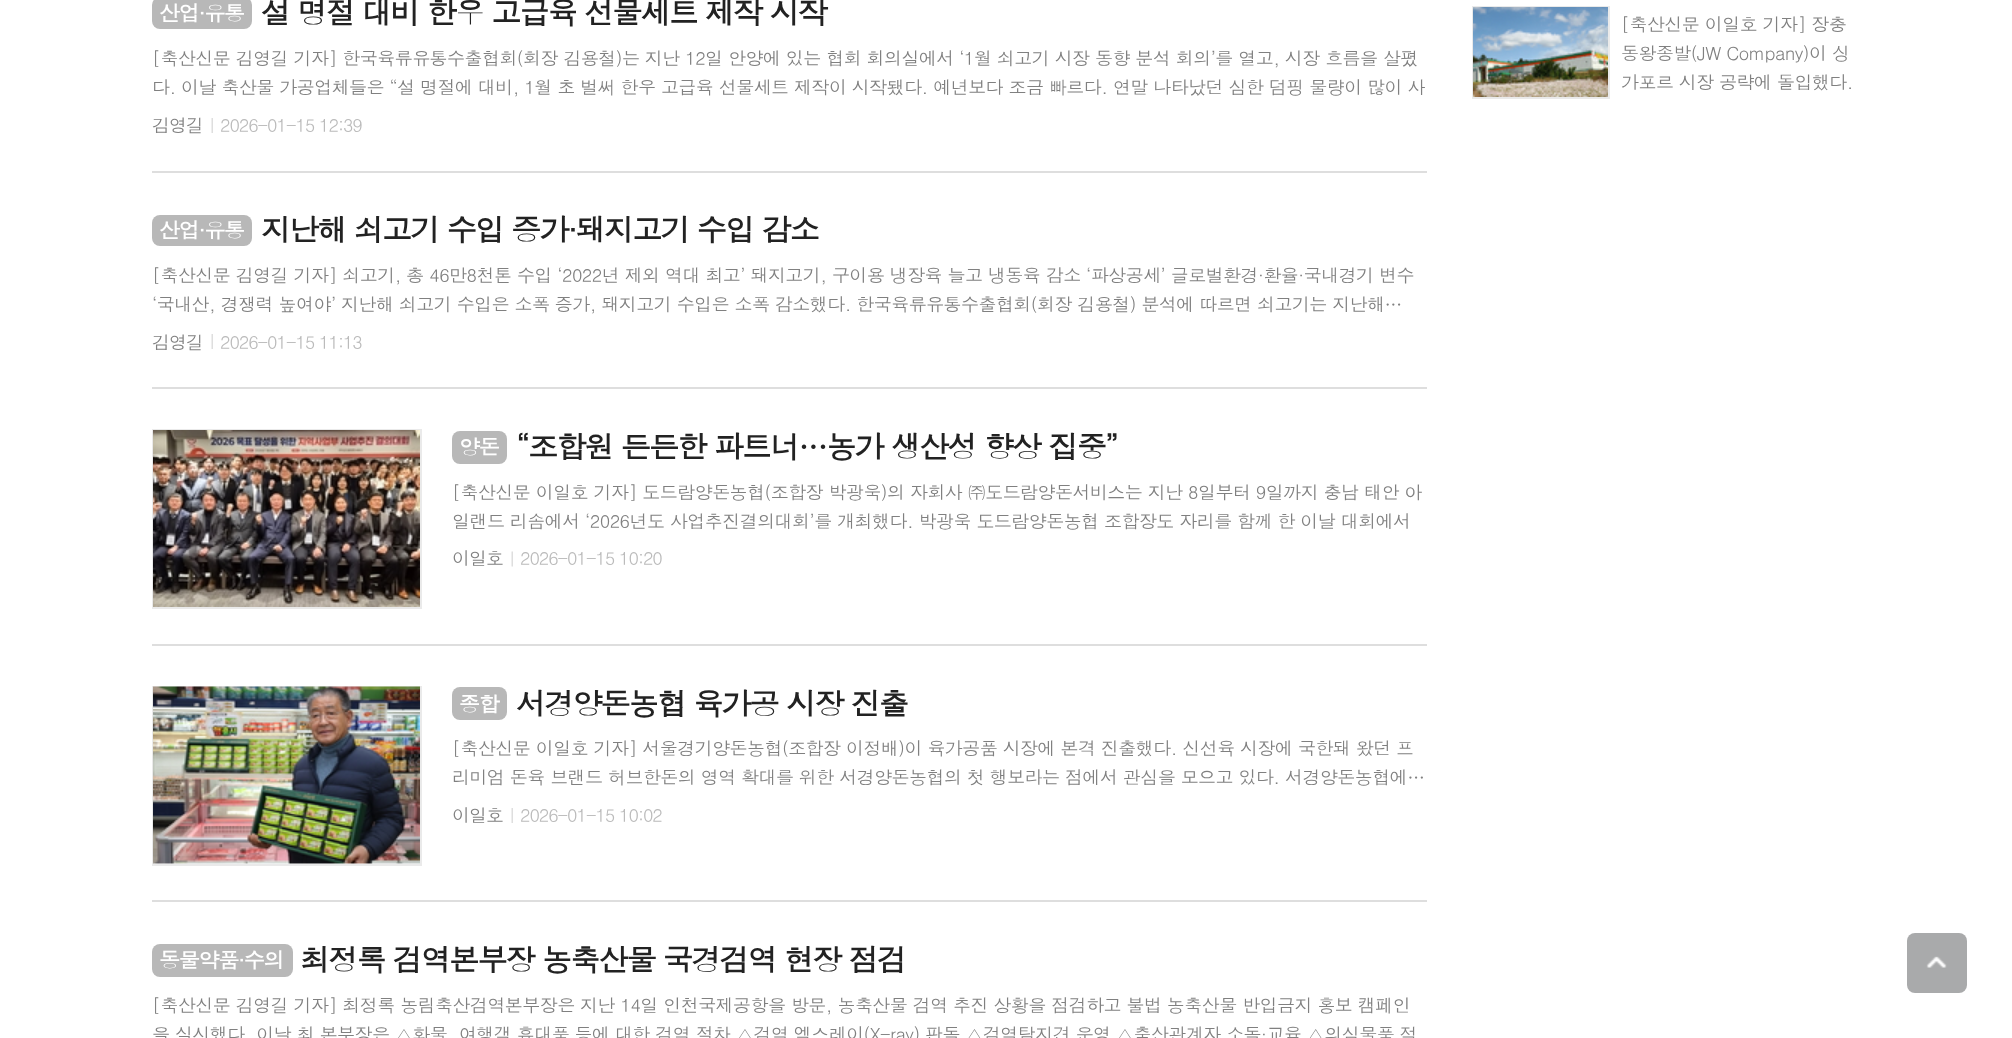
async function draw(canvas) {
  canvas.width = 2012;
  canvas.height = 1038;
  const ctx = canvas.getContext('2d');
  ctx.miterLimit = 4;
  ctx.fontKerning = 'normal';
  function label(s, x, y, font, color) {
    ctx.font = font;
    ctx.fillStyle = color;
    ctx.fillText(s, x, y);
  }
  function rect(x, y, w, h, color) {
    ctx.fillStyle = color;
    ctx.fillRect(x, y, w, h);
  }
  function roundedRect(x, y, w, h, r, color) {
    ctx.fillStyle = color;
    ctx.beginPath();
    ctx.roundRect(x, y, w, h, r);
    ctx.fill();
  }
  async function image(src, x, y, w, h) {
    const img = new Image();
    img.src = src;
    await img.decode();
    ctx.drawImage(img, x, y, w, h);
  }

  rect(0, 0, 2012, 1038, '#fff');
  rect(152, 171, 1275, 2, '#dedede');
  roundedRect(152, -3, 100, 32, 8, '#b8b8b8');
  ctx.letterSpacing = '-1.25px';
  label('산업·유통', 159, 21, 'bold 21px Dotum', '#fff');
  ctx.letterSpacing = '-1.8px';
  label('설 명절 대비 한우 고급육 선물세트 제작 시작', 261, 24, 'bold 30px Dotum', '#222');
  ctx.letterSpacing = '-0.55px';
  label('[축산신문 김영길 기자] 한국육류유통수출협회(회장 김용철)는 지난 12일 안양에 있는 협회 회의실에서 ‘1월 쇠고기 시장 동향 분석 회의’를 열고, 시장 흐름을 살폈', 152, 65, '18px Dotum', '#808080');
  label('다. 이날 축산물 가공업체들은 “설 명절에 대비, 1월 초 벌써 한우 고급육 선물세트 제작이 시작됐다. 예년보다 조금 빠르다. 연말 나타났던 심한 덤핑 물량이 많이 사', 152, 94, '18px Dotum', '#808080');
  ctx.letterSpacing = '-1.1px';
  label('김영길', 152, 132, '18px Dotum', '#808080');
  await image('assets/img1.png', 211, 118, 2, 15);
  label('2026-01-15 12:39', 220, 132, '18px Dotum', '#bbb');
  rect(152, 387, 1275, 2, '#dedede');
  roundedRect(152, 215, 100, 31, 8, '#b8b8b8');
  ctx.letterSpacing = '-1.25px';
  label('산업·유통', 159, 238, 'bold 21px Dotum', '#fff');
  ctx.letterSpacing = '-1.8px';
  label('지난해 쇠고기 수입 증가·돼지고기 수입 감소', 261, 241, 'bold 30px Dotum', '#222');
  ctx.letterSpacing = '-0.55px';
  label('[축산신문 김영길 기자] 쇠고기, 총 46만8천톤 수입 ‘2022년 제외 역대 최고’ 돼지고기, 구이용 냉장육 늘고 냉동육 감소 ‘파상공세’ 글로벌환경·환율·국내경기 변수', 152, 282, '18px Dotum', '#808080');
  label('‘국내산, 경쟁력 높여야’ 지난해 쇠고기 수입은 소폭 증가, 돼지고기 수입은 소폭 감소했다. 한국육류유통수출협회(회장 김용철) 분석에 따르면 쇠고기는 지난해…', 152, 311, '18px Dotum', '#808080');
  ctx.letterSpacing = '-1.1px';
  label('김영길', 152, 349, '18px Dotum', '#808080');
  await image('assets/img1.png', 211, 334, 2, 15);
  label('2026-01-15 11:13', 220, 349, '18px Dotum', '#bbb');
  rect(152, 644, 1275, 2, '#dedede');
  ctx.strokeStyle = '#eaeaea';
  ctx.lineWidth = 2;
  ctx.strokeRect(153, 430, 268, 178);
  await image('assets/img2.png', 153, 430, 267, 177);
  roundedRect(452, 431, 55, 33, 8, '#b8b8b8');
  ctx.letterSpacing = '-1.25px';
  label('양돈', 459, 455, 'bold 21px Dotum', '#fff');
  ctx.letterSpacing = '-1.8px';
  label('“조합원 든든한 파트너…농가 생산성 향상 집중”', 516, 458, 'bold 30px Dotum', '#222');
  ctx.letterSpacing = '-0.55px';
  label('[축산신문 이일호 기자] 도드람양돈농협(조합장 박광욱)의 자회사 ㈜도드람양돈서비스는 지난 8일부터 9일까지 충남 태안 아', 452, 499, '18px Dotum', '#808080');
  label('일랜드 리솜에서 ‘2026년도 사업추진결의대회’를 개최했다. 박광욱 도드람양돈농협 조합장도 자리를 함께 한 이날 대회에서', 452, 528, '18px Dotum', '#808080');
  ctx.letterSpacing = '-1.1px';
  label('이일호', 452, 565, '18px Dotum', '#808080');
  await image('assets/img3.png', 511, 551, 2, 16);
  label('2026-01-15 10:20', 520, 565, '18px Dotum', '#bbb');
  rect(152, 900, 1275, 2, '#dedede');
  ctx.strokeRect(153, 687, 268, 178);
  await image('assets/img4.png', 153, 686, 267, 178);
  roundedRect(452, 687, 55, 33, 8, '#b8b8b8');
  ctx.letterSpacing = '-1.25px';
  label('종합', 459, 712, 'bold 21px Dotum', '#fff');
  ctx.letterSpacing = '-1.8px';
  label('서경양돈농협 육가공 시장 진출', 516, 715, 'bold 30px Dotum', '#222');
  ctx.letterSpacing = '-0.55px';
  label('[축산신문 이일호 기자] 서울경기양돈농협(조합장 이정배)이 육가공품 시장에 본격 진출했다. 신선육 시장에 국한돼 왔던 프', 452, 755, '18px Dotum', '#808080');
  label('리미엄 돈육 브랜드 허브한돈의 영역 확대를 위한 서경양돈농협의 첫 행보라는 점에서 관심을 모으고 있다. 서경양돈농협에…', 452, 784, '18px Dotum', '#808080');
  ctx.letterSpacing = '-1.1px';
  label('이일호', 452, 822, '18px Dotum', '#808080');
  await image('assets/img1.png', 511, 808, 2, 15);
  label('2026-01-15 10:02', 520, 822, '18px Dotum', '#bbb');
  roundedRect(152, 944, 141, 33, 8, '#b8b8b8');
  ctx.letterSpacing = '-1.25px';
  label('동물약품·수의', 159, 968, 'bold 21px Dotum', '#fff');
  ctx.letterSpacing = '-1.8px';
  label('최정록 검역본부장 농축산물 국경검역 현장 점검', 300, 971, 'bold 30px Dotum', '#222');
  ctx.letterSpacing = '-0.55px';
  label('[축산신문 김영길 기자] 최정록 농림축산검역본부장은 지난 14일 인천국제공항을 방문, 농축산물 검역 추진 상황을 점검하고 불법 농축산물 반입금지 홍보 캠페인', 152, 1012, '18px Dotum', '#808080');
  label('을 실시했다. 이날 최 본부장은 △화물, 여행객 휴대품 등에 대한 검역 절차 △검역 엑스레이(X-ray) 판독 △검역탐지견 운영 △축산관계자 소독·교육 △의심물품 적', 152, 1041, '18px Dotum', '#808080');
  ctx.strokeRect(1473, 7, 136, 91);
  await image('assets/img5.png', 1473, 7, 135, 90);
  label('[축산신문 이일호 기자] 장충', 1621, 31, '18px Dotum', '#808080');
  label('동왕종발(JW Company)이 싱', 1621, 60, '18px Dotum', '#808080');
  label('가포르 시장 공략에 돌입했다.', 1621, 89, '18px Dotum', '#808080');
  roundedRect(1907, 933, 60, 60, 8, '#a9aaab');
  await image('assets/img6.png', 1926, 956, 21, 12);
}

draw(document.querySelector('canvas'));
